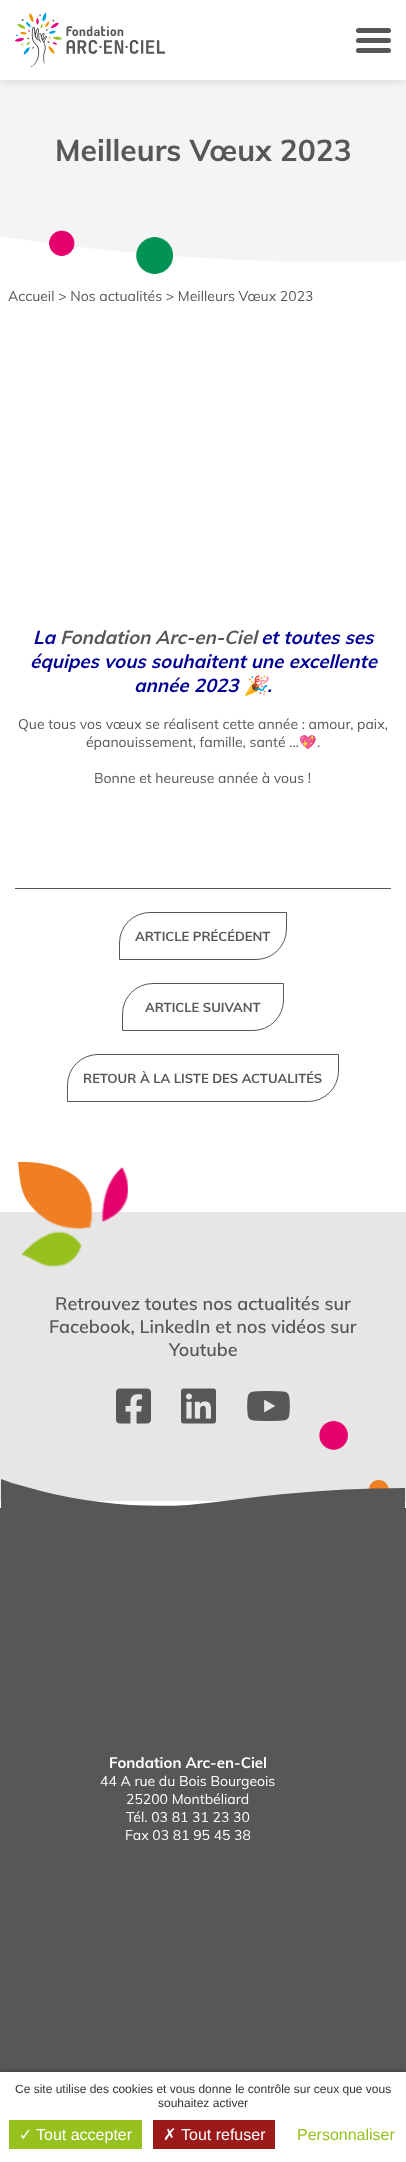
async function draw(canvas) {
  canvas.width = 406;
  canvas.height = 2162;
  const ctx = canvas.getContext('2d');
  ctx.miterLimit = 4;
  ctx.fontKerning = 'normal';
  function label(s, x, y, font, color) {
    ctx.font = font;
    ctx.fillStyle = color;
    ctx.fillText(s, x, y);
  }
  function rect(x, y, w, h, color) {
    ctx.fillStyle = color;
    ctx.fillRect(x, y, w, h);
  }
  function roundedRect(x, y, w, h, r, color) {
    ctx.fillStyle = color;
    ctx.beginPath();
    ctx.roundRect(x, y, w, h, r);
    ctx.fill();
  }
  async function image(src, x, y, w, h) {
    const img = new Image();
    img.src = src;
    await img.decode();
    ctx.drawImage(img, x, y, w, h);
  }
  let path;

  rect(0, 0, 406, 2162, '#fff');
  await image('assets/img2.png', 0, 80, 406, 194);
  ctx.fillStyle = '#00000026';
  ctx.filter = 'blur(5px)';
  ctx.beginPath();
  ctx.rect(0, 0, 406, 80);
  ctx.fill();
  ctx.filter = 'none';
  rect(0, 0, 406, 80, '#fff');
  await image('assets/img1.png', 15, 12, 150, 55);
  roundedRect(356, 28, 35, 5, 2.5, '#575756');
  roundedRect(356, 38, 35, 5, 2.5, '#575756');
  roundedRect(356, 48, 35, 5, 2.5, '#575756');
  label('Meilleurs Vœux 2023', 55, 161, 'bold 30px Muli', '#575756');
  label('Accueil > Nos actualités > Meilleurs Vœux 2023', 8, 301, '14px Muli', '#575756');
  label('La', 33, 644, 'italic bold 18.7px Muli', '#000095');
  label('Fondation Arc-en-Ciel', 60, 644, 'italic bold 18.7px Muli', '#575756');
  label('et toutes ses', 261, 644, 'italic bold 18.7px Muli', '#000095');
  label('équipes vous souhaitent une excellente', 30, 668, 'italic bold 18.7px Muli', '#000095');
  label('année 2023', 134, 692, 'italic bold 18.7px Muli', '#000095');
  label('🎉', 244, 692, 'italic bold 18.7px Noto Color Emoji', '#000095');
  label('.', 267, 692, 'italic bold 18.7px Muli', '#000095');
  label('Que tous vos vœux se réalisent cette année : amour, paix,', 18, 729, '14px Muli', '#575756');
  label('épanouissement, famille, santé …', 86, 747, '14px Muli', '#575756');
  label('💖', 299, 747, '14px Noto Color Emoji', '#575756');
  label('.', 317, 747, '14px Muli', '#575756');
  label('Bonne et heureuse année à vous !', 94, 783, '14px Muli', '#575756');
  rect(15, 888, 376, 1, '#575756');
  ctx.beginPath();
  ctx.roundRect(119.5, 912.5, 167, 47, [30.5, 0, 30.5, 0]);
  ctx.strokeStyle = '#575756';
  ctx.stroke();
  label('ARTICLE PRÉCÉDENT', 135, 941, 'bold 13px Muli', '#575756');
  ctx.beginPath();
  ctx.roundRect(122.5, 983.5, 161, 47, [30.5, 0, 30.5, 0]);
  ctx.stroke();
  label('ARTICLE SUIVANT', 145, 1012, 'bold 13px Muli', '#575756');
  ctx.beginPath();
  ctx.roundRect(67.5, 1054.5, 271, 47, [30.5, 0, 30.5, 0]);
  ctx.stroke();
  label('RETOUR À LA LISTE DES ACTUALITÉS', 83, 1083, 'bold 13px Muli', '#575756');
  rect(0, 1212, 406, 289, '#e6e6e6');
  await image('assets/img3.png', 18, 1162, 110, 105);
  label('Retrouvez toutes nos actualités sur', 55, 1310, '600 18px Muli', '#575756');
  label('Facebook, LinkedIn et nos vidéos sur', 49, 1333, '600 18px Muli', '#575756');
  label('Youtube', 169, 1356, '600 18px Muli', '#575756');
  await image('assets/img4.png', 116, 1388, 35, 36);
  await image('assets/img5.png', 181, 1388, 35, 36);
  await image('assets/img6.png', 247, 1391, 43, 30);
  await image('assets/img7.png', 318, 1420, 71, 69);
  rect(0, 1508, 406, 564, '#575756');
  ctx.save();
  ctx.beginPath();
  ctx.rect(0, 1479, 406, 34);
  ctx.clip();
  ctx.fillStyle = '#575757';
  path = new Path2D('M405 1488V1517H1V1479L12 1483L41 1491C89 1503 139 1508 188 1505C220 1502 252 1497 284 1494C324 1490 365 1488 405 1488Z');
  ctx.fill(path);
  ctx.restore();
  label('Fondation Arc-en-Ciel', 109, 1768, 'bold 15px Muli', '#fff');
  label('44 A rue du Bois Bourgeois', 100, 1786, '14px Muli', '#fff');
  label('25200 Montbéliard', 126, 1804, '14px Muli', '#fff');
  label('Tél. 03 81 31 23 30', 126, 1822, '14px Muli', '#fff');
  label('Fax 03 81 95 45 38', 125, 1840, '14px Muli', '#fff');
  ctx.fillStyle = '#0000006b';
  ctx.filter = 'blur(2.5px)';
  ctx.beginPath();
  ctx.rect(0, 2072, 406, 90);
  ctx.fill();
  ctx.filter = 'none';
  rect(0, 2072, 406, 90, '#fff');
  label('Ce site utilise des cookies et vous donne le contrôle sur ceux que vous', 15, 2093, '12px Liberation Sans', '#333');
  label('souhaitez activer', 158, 2107, '12px Liberation Sans', '#333');
  rect(9, 2120, 133, 29, '#96c11f');
  label('✓', 19, 2140, '16px DejaVu Sans', '#fff');
  label('Tout accepter', 36, 2140, '16px Liberation Sans', '#fff');
  rect(153, 2120, 122, 29, '#9c1a1a');
  label('✗', 163, 2140, '16px DejaVu Sans', '#fff');
  label('Tout refuser', 181, 2140, '16px Liberation Sans', '#fff');
  label('Personnaliser', 297, 2140, '16px Liberation Sans', '#96c11f');
}

draw(document.querySelector('canvas'));
